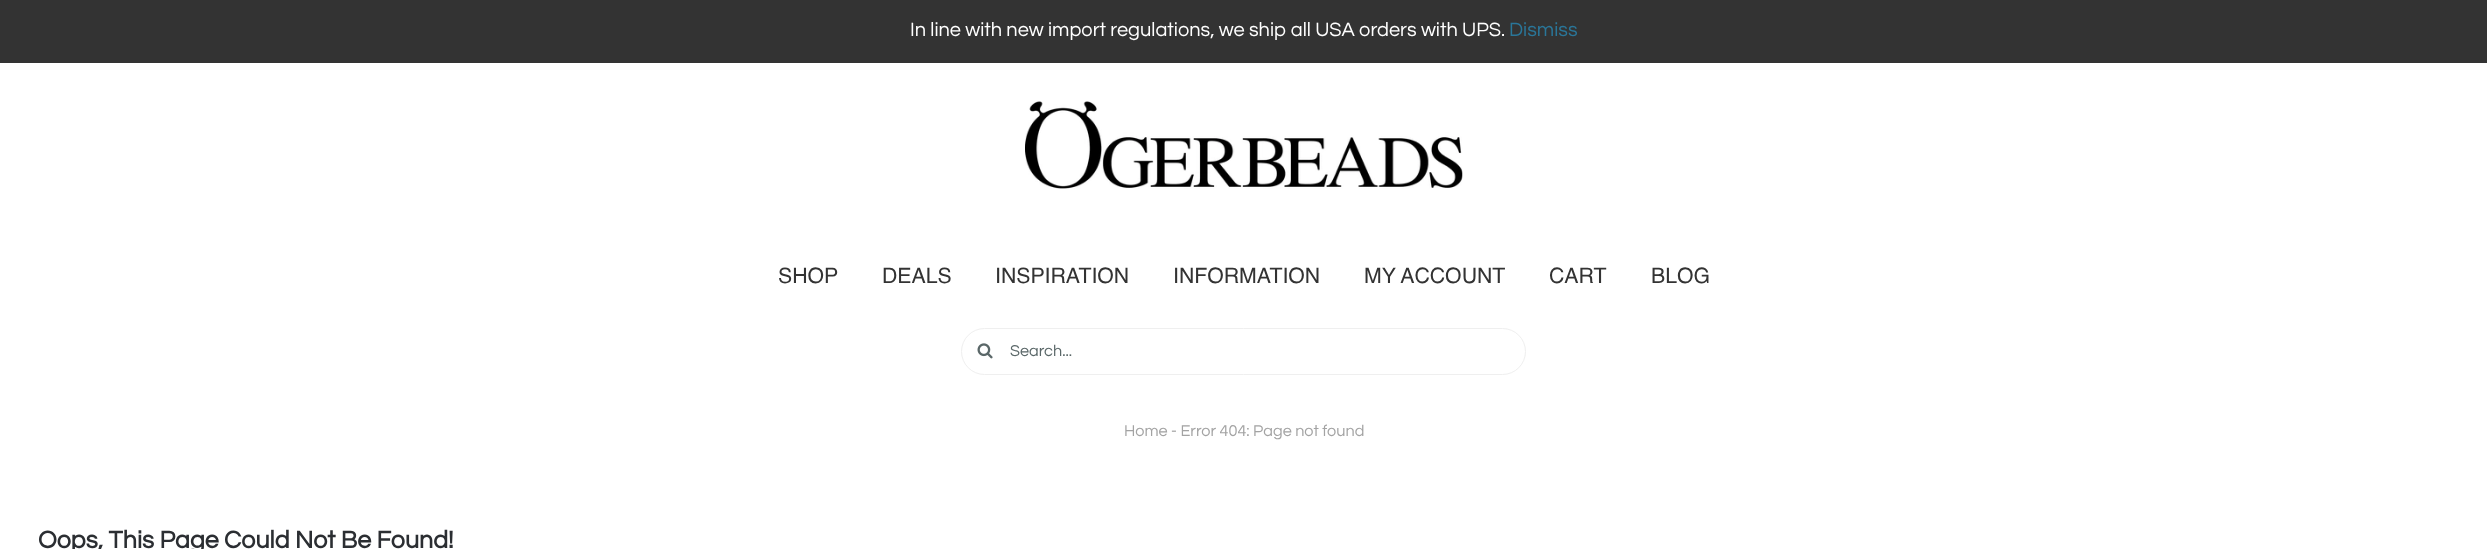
async function draw(canvas) {
  canvas.width = 2487;
  canvas.height = 549;
  const ctx = canvas.getContext('2d');
  ctx.miterLimit = 4;
  ctx.fontKerning = 'normal';
  function label(s, x, y, font, color) {
    ctx.font = font;
    ctx.fillStyle = color;
    ctx.fillText(s, x, y);
  }
  function rect(x, y, w, h, color) {
    ctx.fillStyle = color;
    ctx.fillRect(x, y, w, h);
  }
  async function image(src, x, y, w, h) {
    const img = new Image();
    img.src = src;
    await img.decode();
    ctx.drawImage(img, x, y, w, h);
  }

  rect(0, 0, 2487, 549, '#fff');
  rect(0, 0, 2487, 63, '#333');
  label('In line with new import regulations, we ship all USA orders with UPS.', 910, 36, '20px Questrial', '#fff');
  label('Dismiss', 1509, 36, '20px Questrial', '#2a7699');
  await image('assets/img1.png', 1025, 101, 438, 88);
  label('SHOP', 778, 283, '21.25px Helvetica', '#333');
  label('DEALS', 882, 283, '21.25px Helvetica', '#333');
  label('INSPIRATION', 995, 283, '21.25px Helvetica', '#333');
  label('INFORMATION', 1173, 283, '21.25px Helvetica', '#333');
  label('MY ACCOUNT', 1364, 283, '21.25px Helvetica', '#333');
  label('CART', 1549, 283, '21.25px Helvetica', '#333');
  label('BLOG', 1651, 283, '21.25px Helvetica', '#333');
  ctx.beginPath();
  ctx.roundRect(961.5, 328.5, 564, 46, 23);
  ctx.strokeStyle = '#efefef';
  ctx.stroke();
  await image('assets/img2.png', 977, 343, 16, 16);
  label('Search...', 1010, 356, '16.25px Questrial', '#5a6768');
  label('Home - Error 404: Page not found', 1124, 436, '16.25px Questrial', '#a3a3a3');
  label('Oops, This Page Could Not Be Found!', 38, 548, 'bold 25px Questrial', '#2b2e32');
}

draw(document.querySelector('canvas'));
